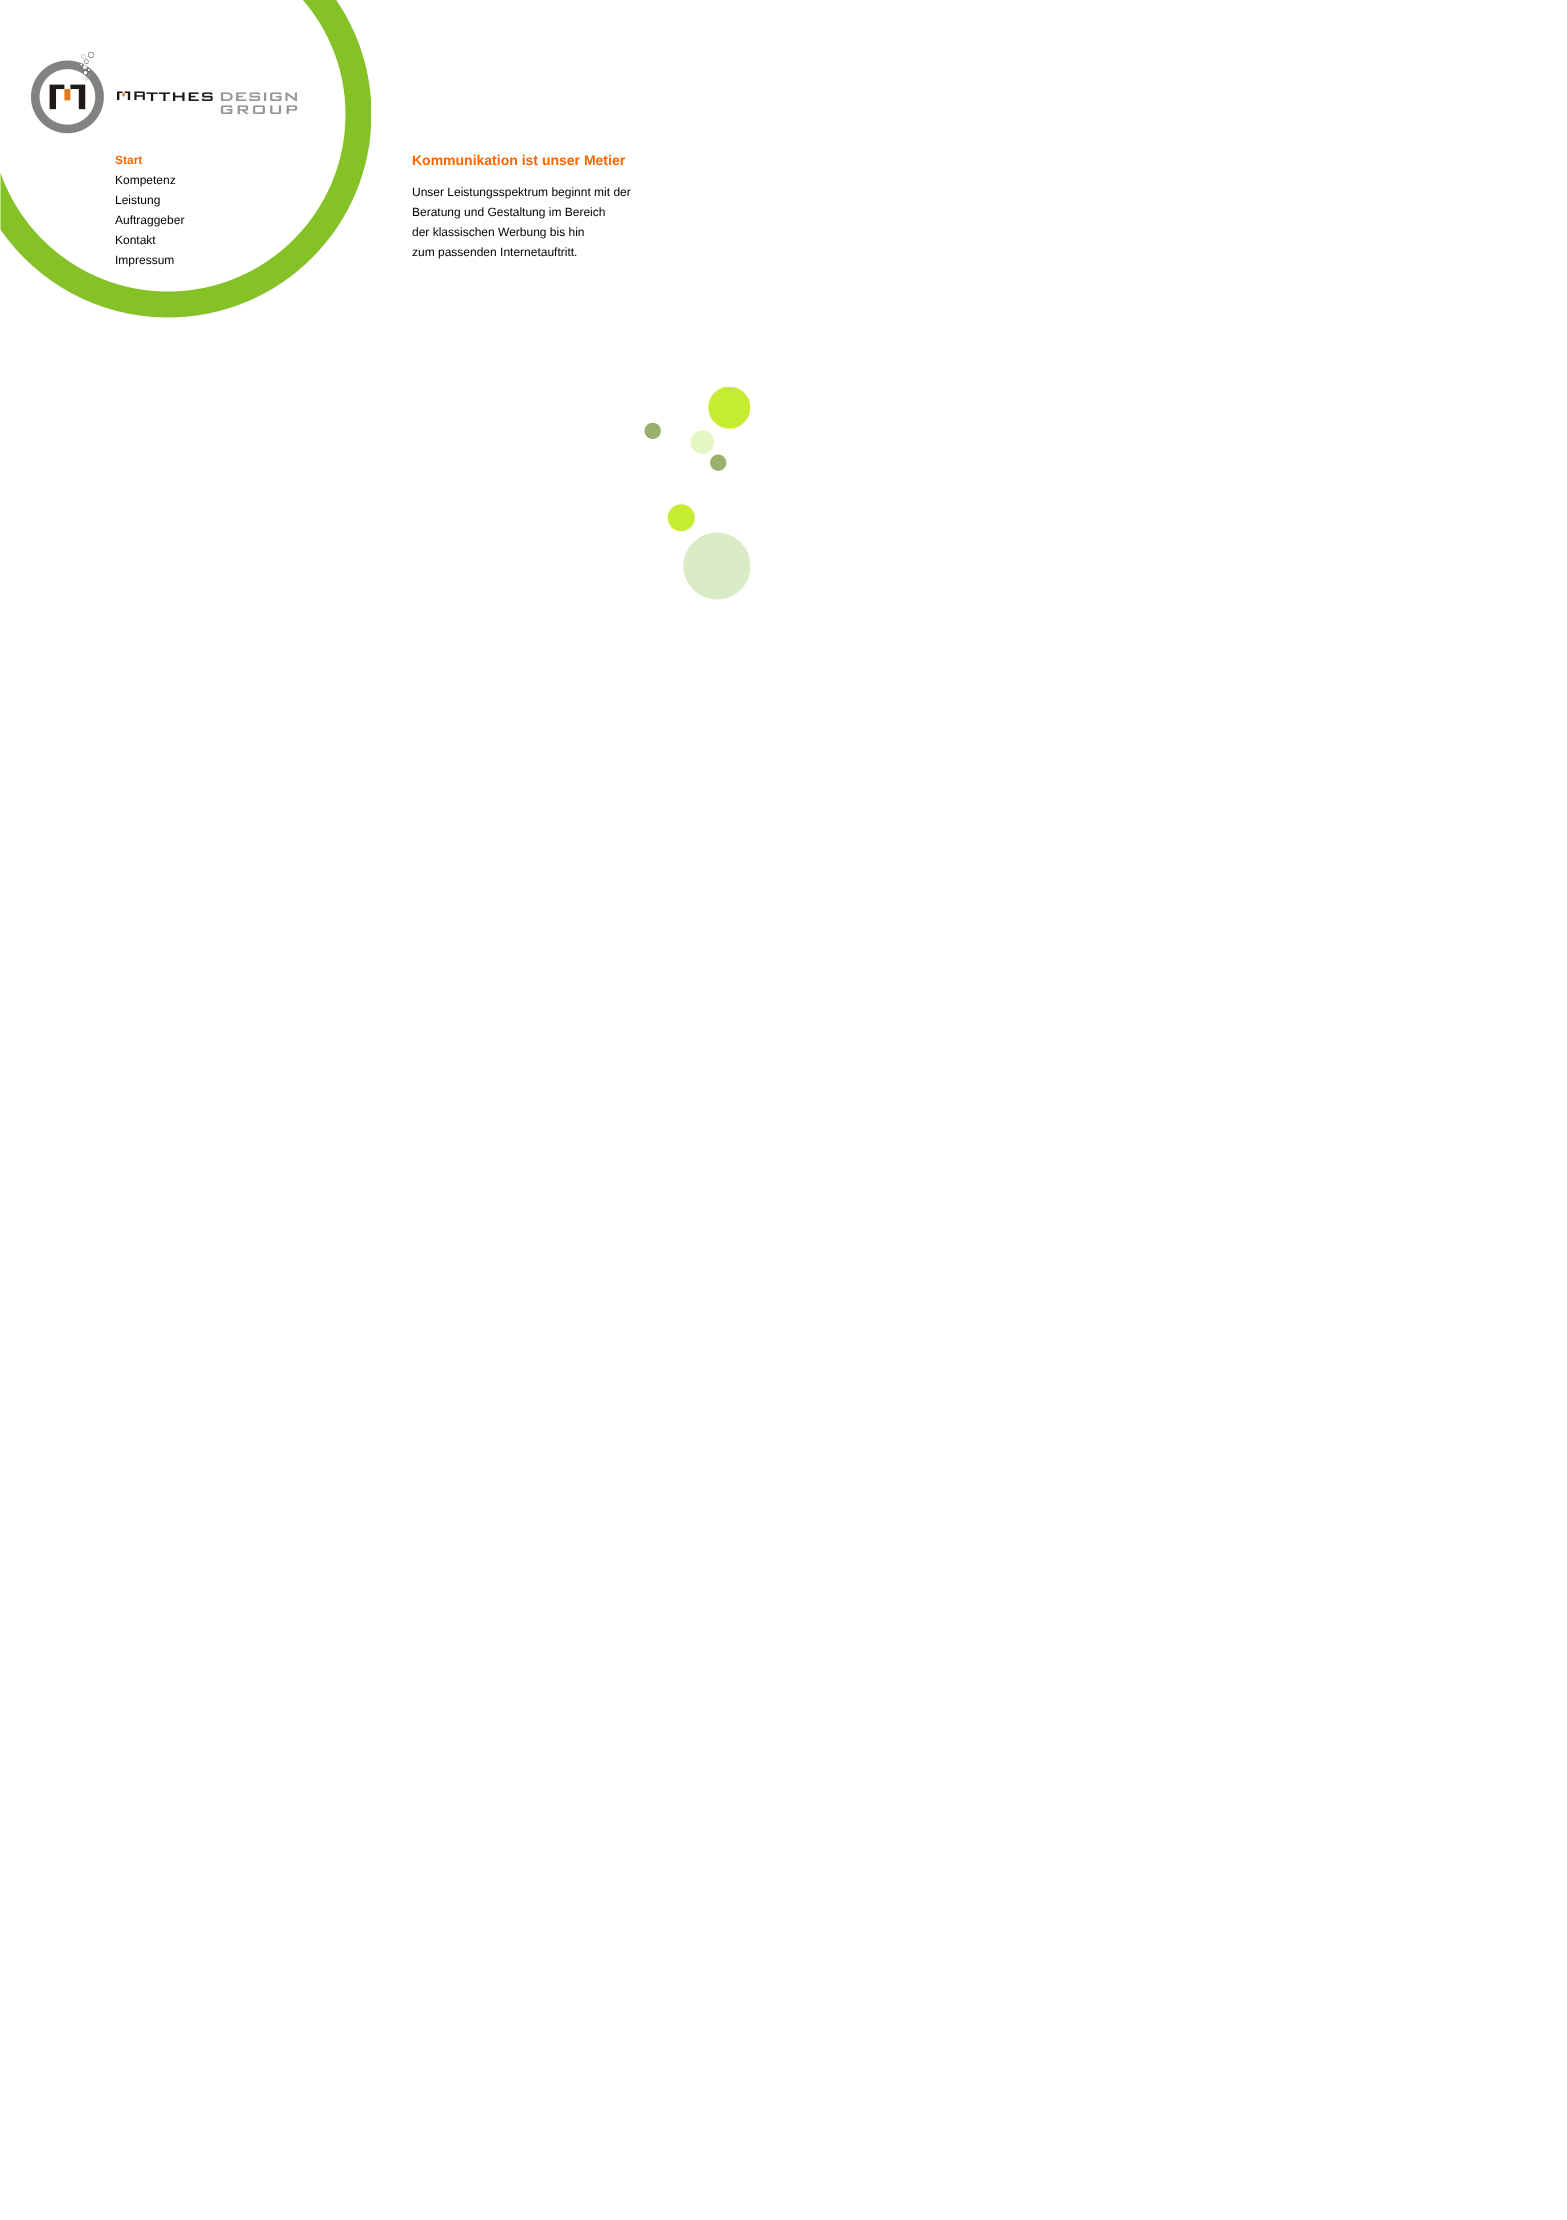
async function draw(canvas) {
  canvas.width = 1567;
  canvas.height = 2220;
  const ctx = canvas.getContext('2d');
  ctx.miterLimit = 4;
  ctx.fontKerning = 'normal';
  function label(s, x, y, font, color) {
    ctx.font = font;
    ctx.fillStyle = color;
    ctx.fillText(s, x, y);
  }
  function rect(x, y, w, h, color) {
    ctx.fillStyle = color;
    ctx.fillRect(x, y, w, h);
  }
  async function image(src, x, y, w, h) {
    const img = new Image();
    img.src = src;
    await img.decode();
    ctx.drawImage(img, x, y, w, h);
  }

  rect(0, 0, 1567, 2220, '#fff');
  await image('assets/img1.png', 0, 0, 371, 318);
  await image('assets/img2.png', 644, 387, 106, 213);
  label('Kommunikation ist unser Metier', 412, 165, 'bold 14px Liberation Sans', '#f60');
  label('Unser Leistungsspektrum beginnt mit der', 412, 196, '12px Liberation Sans', '#000');
  label('Beratung und Gestaltung im Bereich', 412, 216, '12px Liberation Sans', '#000');
  label('der klassischen Werbung bis hin', 412, 236, '12px Liberation Sans', '#000');
  label('zum passenden Internetauftritt.', 412, 256, '12px Liberation Sans', '#000');
  label('Start', 115, 164, 'bold 12px Liberation Sans', '#f60');
  label('Kompetenz', 115, 184, '12px Liberation Sans', '#000');
  label('Leistung', 115, 204, '12px Liberation Sans', '#000');
  label('Auftraggeber', 115, 224, '12px Liberation Sans', '#000');
  label('Kontakt', 115, 244, '12px Liberation Sans', '#000');
  label('Impressum', 115, 264, '12px Liberation Sans', '#000');
}

draw(document.querySelector('canvas'));
